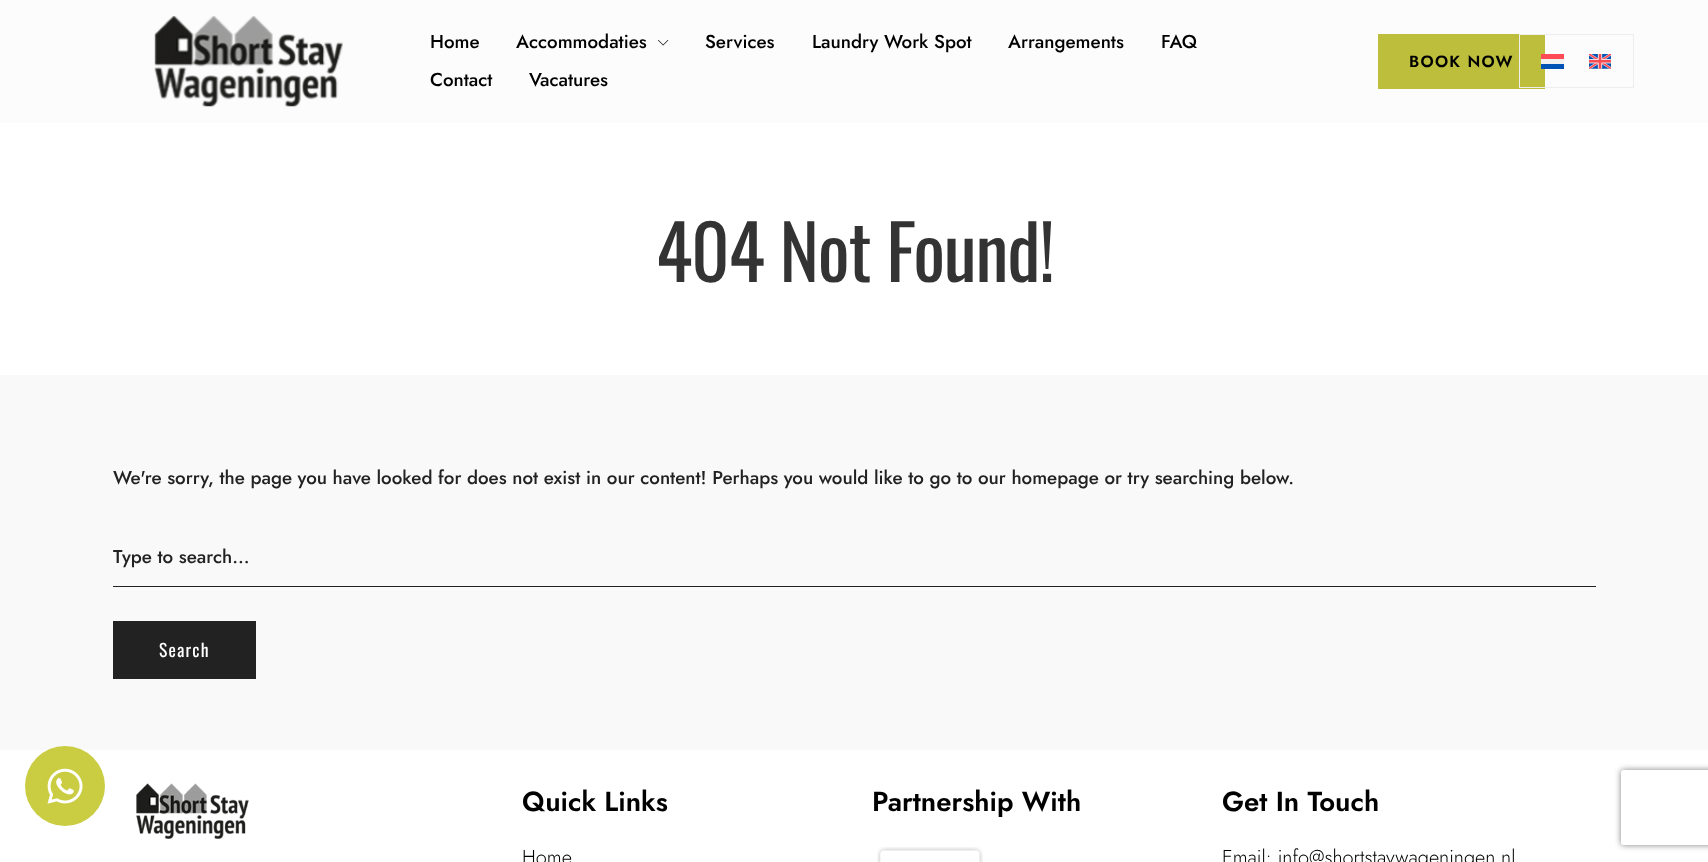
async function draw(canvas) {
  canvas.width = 1708;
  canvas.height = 862;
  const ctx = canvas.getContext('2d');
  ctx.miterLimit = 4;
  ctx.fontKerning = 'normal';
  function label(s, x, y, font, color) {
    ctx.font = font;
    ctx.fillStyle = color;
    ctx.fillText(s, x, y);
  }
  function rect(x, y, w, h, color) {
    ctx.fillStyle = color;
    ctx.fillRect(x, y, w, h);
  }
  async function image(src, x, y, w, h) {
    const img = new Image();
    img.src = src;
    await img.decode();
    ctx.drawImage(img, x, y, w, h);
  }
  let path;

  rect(0, 0, 1708, 862, '#f9f9f9');
  rect(0, 0, 1708, 123, '#fcfcfc');
  await image('assets/img1.png', 154, 16, 189, 91);
  label('Home', 430, 48, '500 18.75px Jost', '#000');
  label('Accommodaties', 516, 48, '500 18.75px Jost', '#000');
  await image('assets/img2.png', 658, 39, 11, 7);
  label('Services', 705, 48, '500 18.75px Jost', '#000');
  label('Laundry Work Spot', 812, 48, '500 18.75px Jost', '#000');
  label('Arrangements', 1008, 48, '500 18.75px Jost', '#000');
  label('FAQ', 1161, 48, '500 18.75px Jost', '#000');
  label('Contact', 430, 86, '500 18.75px Jost', '#000');
  label('Vacatures', 529, 86, '500 18.75px Jost', '#000');
  rect(1378, 34, 167, 55, '#bcbe3c');
  ctx.letterSpacing = '1.25px';
  label('BOOK NOW', 1409, 67, '600 16.25px Jost', '#000');
  ctx.strokeStyle = '#eee';
  ctx.strokeRect(1519.5, 34.5, 114, 53);
  rect(1541, 54, 23, 5, '#ff4b55');
  rect(1541, 59, 23, 5, '#f0f0f0');
  rect(1541, 64, 23, 5, '#0052b4');
  await image('assets/img3.png', 1589, 54, 22, 15);
  rect(0, 750, 1708, 112, '#fff');
  ctx.fillStyle = '#cacc41';
  ctx.beginPath();
  ctx.arc(65, 786, 40, 0, 2 * Math.PI);
  ctx.fill();
  await image('assets/img4.png', 47, 768, 36, 36);
  rect(0, 123, 1708, 252, '#fff');
  ctx.letterSpacing = '-1.25px';
  label('404 Not Found!', 656, 282, '75px Oswald', '#333');
  ctx.letterSpacing = '0px';
  label('We\'re sorry, the page you have looked for does not exist in our content! Perhaps you would like to go to our homepage or try searching below.', 113, 484, '500 18.75px Jost', '#222');
  rect(113, 586, 1483, 1, '#222');
  label('Type to search...', 113, 563, '500 18.75px Jost', '#222');
  rect(113, 621, 143, 58, '#222');
  ctx.letterSpacing = '1.25px';
  label('Search', 159, 657, '17.5px Oswald', '#fff');
  await image('assets/img5.png', 136, 783, 113, 56);
  ctx.letterSpacing = '0px';
  label('Quick Links', 522, 811, '600 27.5px Jost', '#000');
  label('Home', 522, 864, '300 20px Jost', '#000');
  label('Partnership With', 872, 811, '600 27.5px Jost', '#000');
  await image('assets/img6.png', 877, 847, 106, 15);
  label('Get In Touch', 1222, 811, '600 27.5px Jost', '#000');
  label('Email: info@shortstaywageningen.nl', 1222, 864, '300 20px Jost', '#000');
  ctx.save();
  path = new Path2D('M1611 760H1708V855H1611ZM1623.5 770H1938.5C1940 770 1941 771 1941 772.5V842.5C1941 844 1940 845 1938.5 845H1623.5C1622 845 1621 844 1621 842.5V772.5C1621 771 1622 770 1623.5 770Z');
  ctx.clip(path, 'evenodd');
  ctx.fillStyle = '#808080';
  ctx.filter = 'blur(3px)';
  ctx.beginPath();
  ctx.roundRect(1621, 770, 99, 75, 2.5);
  ctx.fill();
  ctx.filter = 'none';
  ctx.restore();
}

draw(document.querySelector('canvas'));
